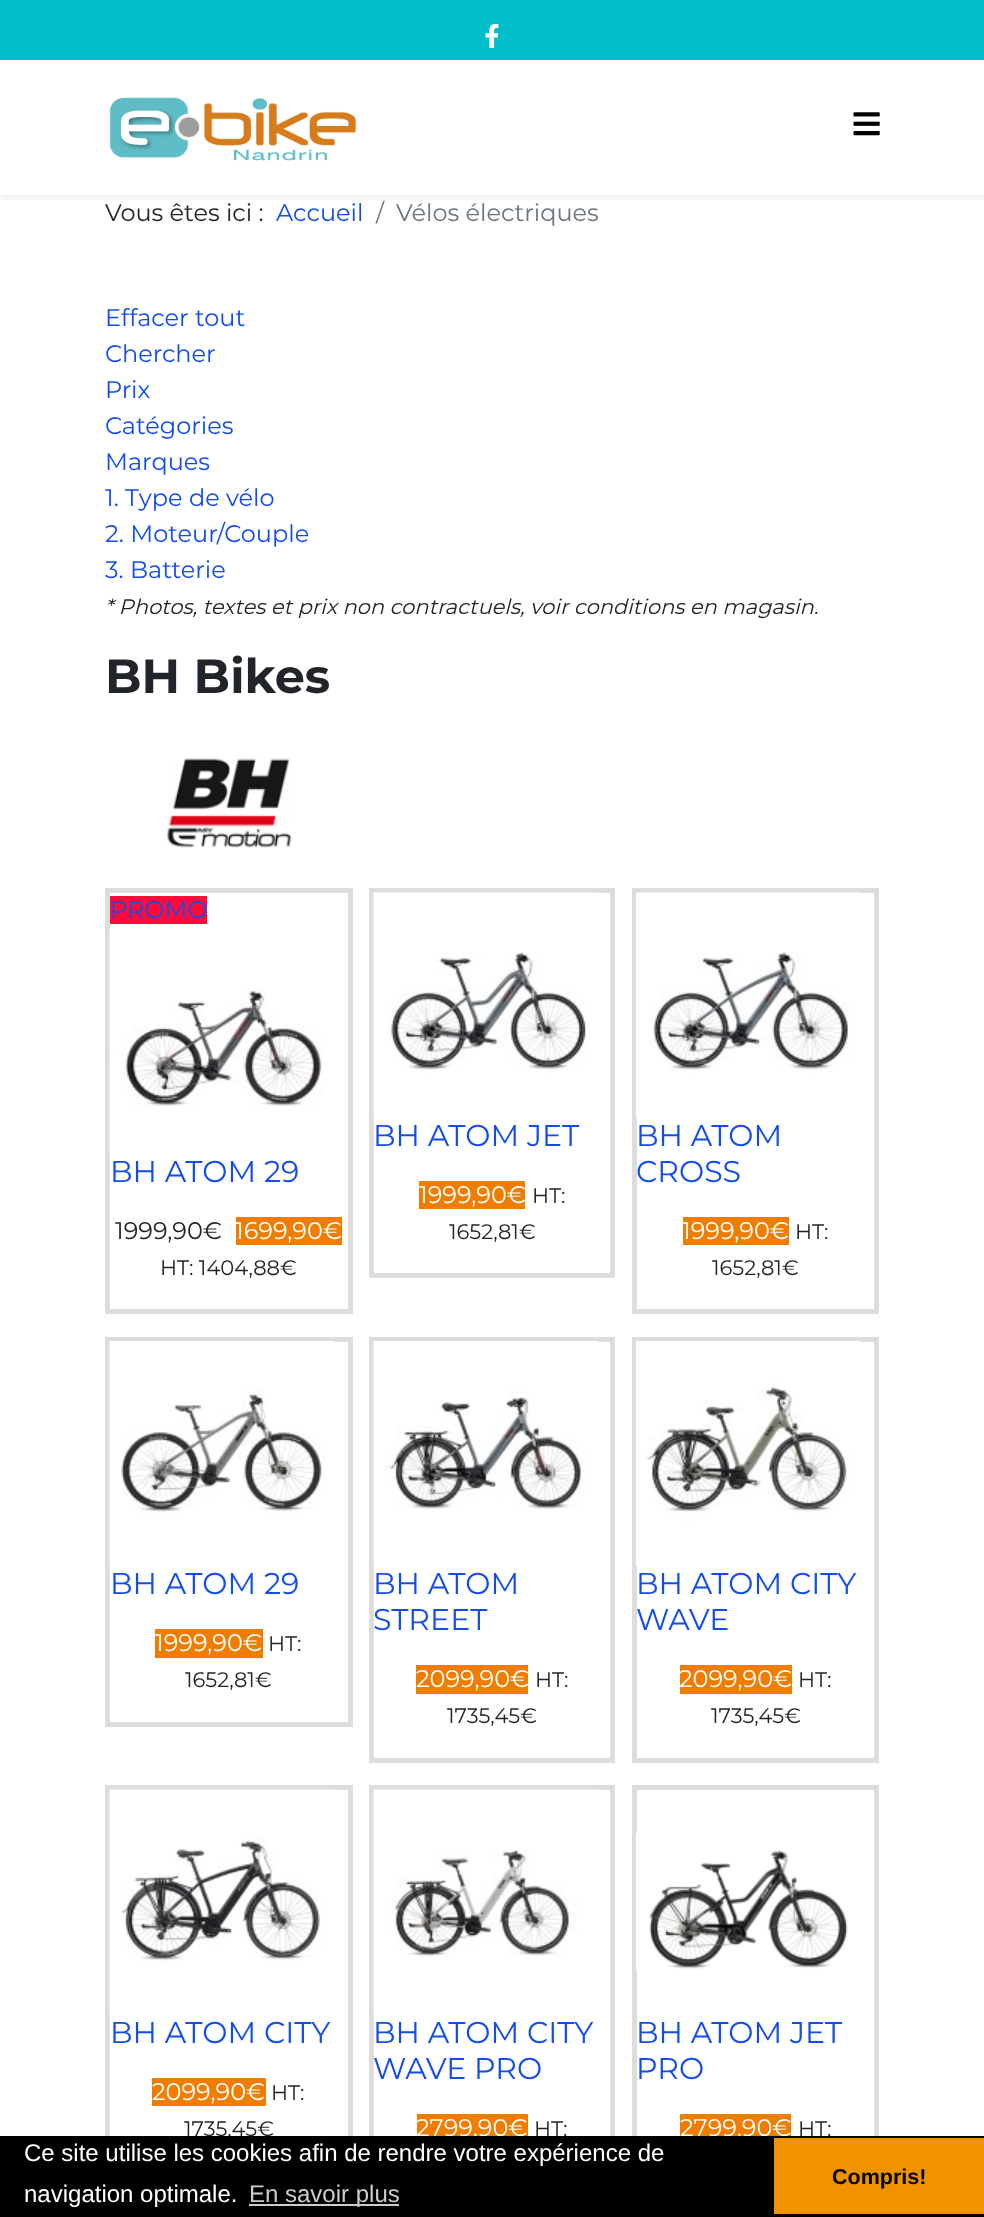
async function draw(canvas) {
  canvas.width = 984;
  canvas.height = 2217;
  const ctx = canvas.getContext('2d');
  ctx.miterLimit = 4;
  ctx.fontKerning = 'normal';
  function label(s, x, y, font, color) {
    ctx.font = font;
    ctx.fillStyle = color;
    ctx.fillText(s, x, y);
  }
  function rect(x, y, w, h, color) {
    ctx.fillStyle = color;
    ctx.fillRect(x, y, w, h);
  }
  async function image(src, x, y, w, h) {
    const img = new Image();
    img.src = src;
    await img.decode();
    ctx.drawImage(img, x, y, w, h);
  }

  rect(0, 0, 984, 2217, '#fff');
  rect(0, 0, 984, 60, '#00bfcb');
  await image('assets/img1.png', 485, 24, 14, 24);
  ctx.save();
  ctx.beginPath();
  ctx.rect(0, 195, 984, 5);
  ctx.clip();
  ctx.fillStyle = '#0000000d';
  ctx.filter = 'blur(2px)';
  ctx.beginPath();
  ctx.rect(0, 65, 984, 135);
  ctx.fill();
  ctx.filter = 'none';
  ctx.restore();
  await image('assets/img2.png', 109, 97, 248, 64);
  await image('assets/img3.png', 853, 112, 27, 24);
  label('Vous êtes ici :', 105, 221, '24px Montserrat', '#212529');
  label('Accueil', 276, 221, '24px Montserrat', '#124ceb');
  label('/', 376, 221, '24px Montserrat', '#6c757d');
  label('Vélos électriques', 396, 221, '24px Montserrat', '#6c757d');
  label('Effacer tout', 105, 326, '24px Montserrat', '#124ceb');
  label('Chercher', 105, 362, '24px Montserrat', '#124ceb');
  label('Prix', 105, 398, '24px Montserrat', '#124ceb');
  label('Catégories', 105, 434, '24px Montserrat', '#124ceb');
  label('Marques', 105, 470, '24px Montserrat', '#124ceb');
  label('1. Type de vélo', 105, 506, '24px Montserrat', '#124ceb');
  label('2. Moteur/Couple', 105, 542, '24px Montserrat', '#124ceb');
  label('3. Batterie', 105, 578, '24px Montserrat', '#124ceb');
  label('* Photos, textes et prix non contractuels, voir conditions en magasin.', 105, 614, 'italic 21px Montserrat', '#212529');
  label('BH Bikes', 105, 693, 'bold 47.75px Montserrat', '#212529');
  await image('assets/img4.png', 166, 758, 126, 90);
  ctx.strokeStyle = '#ddd';
  ctx.lineWidth = 5;
  ctx.strokeRect(107.5, 890.5, 243, 421);
  rect(110, 896, 97, 28, '#ff0a3b');
  label('PROMO', 110, 918, '24px Montserrat', '#124ceb');
  await image('assets/img5.png', 109, 928, 216, 226);
  label('BH ATOM 29', 110, 1182, '30px Montserrat', '#124ceb');
  label('1999,90€', 115, 1239, '24px Montserrat', '#212529');
  rect(236, 1217, 106, 28, '#f07d00');
  label('1699,90€', 235, 1239, '24px Montserrat', '#fff');
  label('HT: 1404,88€', 160, 1275, '21px Montserrat', '#212529');
  ctx.strokeRect(371.5, 890.5, 241, 385);
  await image('assets/img6.png', 373, 892, 226, 226);
  label('BH ATOM JET', 373, 1146, '30px Montserrat', '#124ceb');
  rect(419, 1181, 106, 28, '#f07d00');
  label('1999,90€', 419, 1203, '24px Montserrat', '#fff');
  label('HT:', 532, 1203, '21px Montserrat', '#212529');
  label('1652,81€', 449, 1239, '21px Montserrat', '#212529');
  ctx.strokeRect(634.5, 890.5, 242, 421);
  await image('assets/img7.png', 636, 892, 225, 226);
  label('BH ATOM', 636, 1146, '30px Montserrat', '#124ceb');
  label('CROSS', 636, 1182, '30px Montserrat', '#124ceb');
  rect(683, 1217, 106, 28, '#f07d00');
  label('1999,90€', 682, 1239, '24px Montserrat', '#fff');
  label('HT:', 795, 1239, '21px Montserrat', '#212529');
  label('1652,81€', 712, 1275, '21px Montserrat', '#212529');
  ctx.strokeRect(107.5, 1339.5, 243, 385);
  await image('assets/img8.png', 109, 1341, 226, 225);
  label('BH ATOM 29', 110, 1594, '30px Montserrat', '#124ceb');
  rect(155, 1629, 108, 29, '#f07d00');
  label('1999,90€', 155, 1651, '24px Montserrat', '#fff');
  label('HT:', 268, 1651, '21px Montserrat', '#212529');
  label('1652,81€', 185, 1687, '21px Montserrat', '#212529');
  ctx.strokeRect(371.5, 1339.5, 241, 421);
  await image('assets/img9.png', 373, 1341, 226, 225);
  label('BH ATOM', 373, 1594, '30px Montserrat', '#124ceb');
  label('STREET', 373, 1630, '30px Montserrat', '#124ceb');
  rect(416, 1665, 112, 29, '#f07d00');
  label('2099,90€', 416, 1687, '24px Montserrat', '#fff');
  label('HT:', 535, 1687, '21px Montserrat', '#212529');
  label('1735,45€', 447, 1723, '21px Montserrat', '#212529');
  ctx.strokeRect(634.5, 1339.5, 242, 421);
  await image('assets/img10.png', 636, 1341, 225, 225);
  label('BH ATOM CITY', 636, 1594, '30px Montserrat', '#124ceb');
  label('WAVE', 636, 1630, '30px Montserrat', '#124ceb');
  rect(680, 1665, 112, 29, '#f07d00');
  label('2099,90€', 679, 1687, '24px Montserrat', '#fff');
  label('HT:', 798, 1687, '21px Montserrat', '#212529');
  label('1735,45€', 711, 1723, '21px Montserrat', '#212529');
  ctx.strokeRect(107.5, 1787.5, 243, 385);
  await image('assets/img11.png', 109, 1789, 226, 226);
  label('BH ATOM CITY', 110, 2043, '30px Montserrat', '#124ceb');
  rect(152, 2078, 114, 28, '#f07d00');
  label('2099,90€', 152, 2100, '24px Montserrat', '#fff');
  label('HT:', 271, 2100, '21px Montserrat', '#212529');
  label('1735,45€', 184, 2136, '21px Montserrat', '#212529');
  ctx.strokeRect(371.5, 1787.5, 241, 421);
  await image('assets/img12.png', 373, 1789, 226, 226);
  label('BH ATOM CITY', 373, 2043, '30px Montserrat', '#124ceb');
  label('WAVE PRO', 373, 2079, '30px Montserrat', '#124ceb');
  rect(417, 2114, 111, 22, '#f07d00');
  label('2799,90€', 416, 2136, '24px Montserrat', '#fff');
  label('HT:', 534, 2136, '21px Montserrat', '#212529');
  ctx.strokeRect(634.5, 1787.5, 242, 421);
  await image('assets/img13.png', 636, 1832, 212, 138);
  label('BH ATOM JET', 636, 2043, '30px Montserrat', '#124ceb');
  label('PRO', 636, 2079, '30px Montserrat', '#124ceb');
  rect(680, 2114, 111, 22, '#f07d00');
  label('2799,90€', 680, 2136, '24px Montserrat', '#fff');
  label('HT:', 798, 2136, '21px Montserrat', '#212529');
  rect(0, 2136, 984, 81, '#000');
  label('Ce site utilise les cookies afin de rendre votre expérience de', 24, 2161, '24px Liberation Sans', '#fff');
  label('navigation optimale.', 24, 2202, '24px Liberation Sans', '#fff');
  rect(249, 2204, 150, 2, '#ccc');
  label('En savoir plus', 249, 2202, '24px Liberation Sans', '#ccc');
  rect(774, 2138, 210, 76, '#f19300');
  label('Compris!', 832, 2184, 'bold 21.5px Liberation Sans', '#000');
}

draw(document.querySelector('canvas'));
